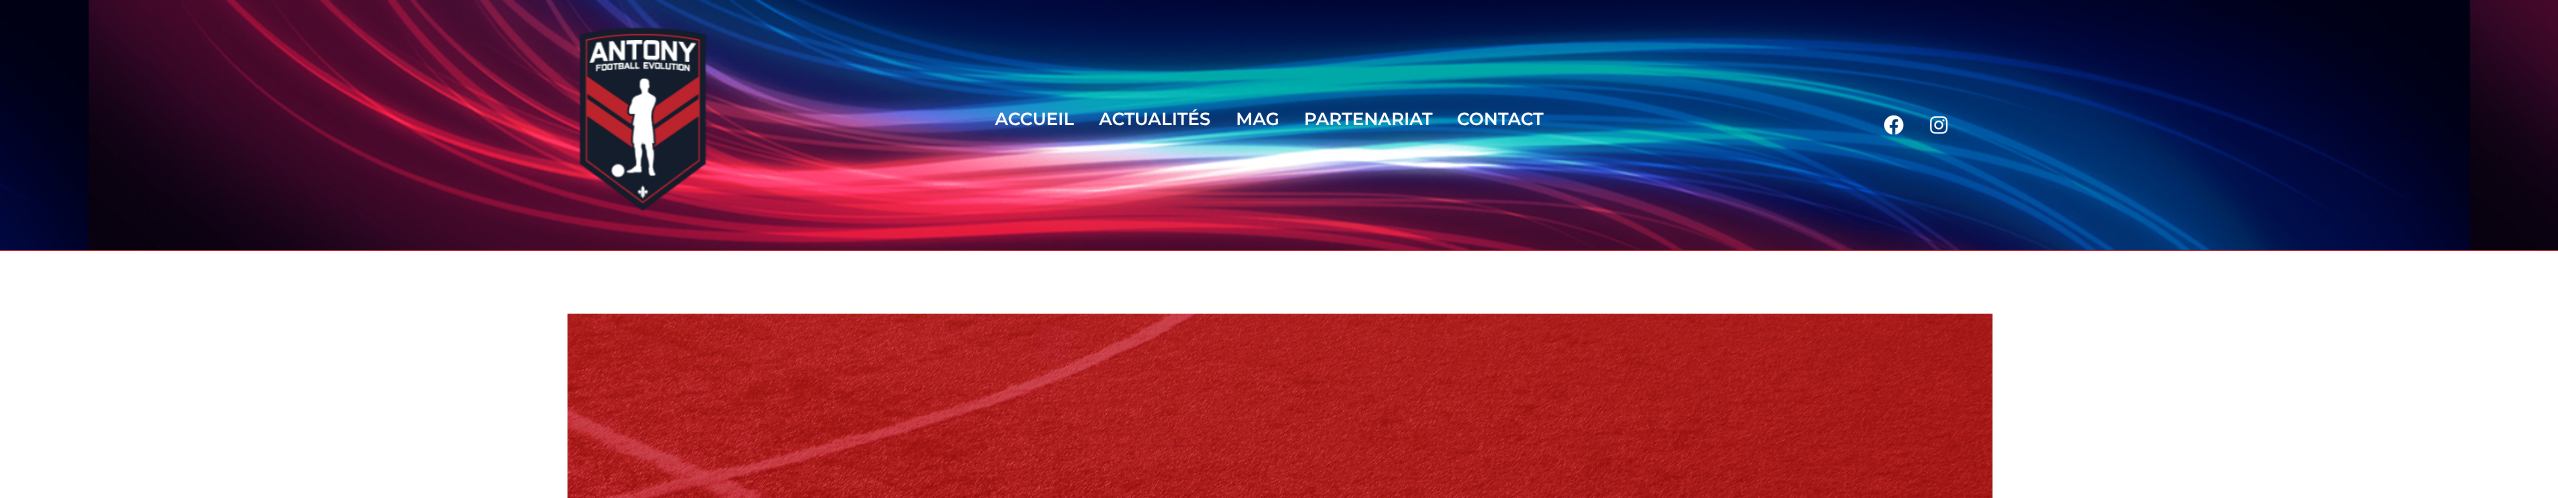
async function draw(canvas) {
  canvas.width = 2558;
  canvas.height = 498;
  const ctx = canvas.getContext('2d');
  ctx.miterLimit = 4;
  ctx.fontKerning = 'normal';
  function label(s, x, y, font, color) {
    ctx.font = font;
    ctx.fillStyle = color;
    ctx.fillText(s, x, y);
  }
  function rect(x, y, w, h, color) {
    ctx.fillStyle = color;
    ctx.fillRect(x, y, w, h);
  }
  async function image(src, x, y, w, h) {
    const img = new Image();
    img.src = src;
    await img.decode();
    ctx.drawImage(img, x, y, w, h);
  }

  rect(0, 0, 2558, 498, '#fff');
  rect(0, 250, 2558, 1, '#bb242c');
  await image('assets/img1.png', 0, 0, 2558, 250);
  await image('assets/img2.png', 579, 27, 128, 185);
  label('ACCUEIL', 995, 125, '600 17.5px Montserrat', '#fff');
  label('ACTUALITÉS', 1099, 125, '600 17.5px Montserrat', '#fff');
  label('MAG', 1236, 125, '600 17.5px Montserrat', '#fff');
  label('PARTENARIAT', 1304, 125, '600 17.5px Montserrat', '#fff');
  label('CONTACT', 1457, 125, '600 17.5px Montserrat', '#fff');
  await image('assets/img3.png', 1884, 115, 20, 20);
  await image('assets/img4.png', 1930, 116, 18, 18);
  await image('assets/img5.png', 567, 313, 1426, 185);
}

draw(document.querySelector('canvas'));
